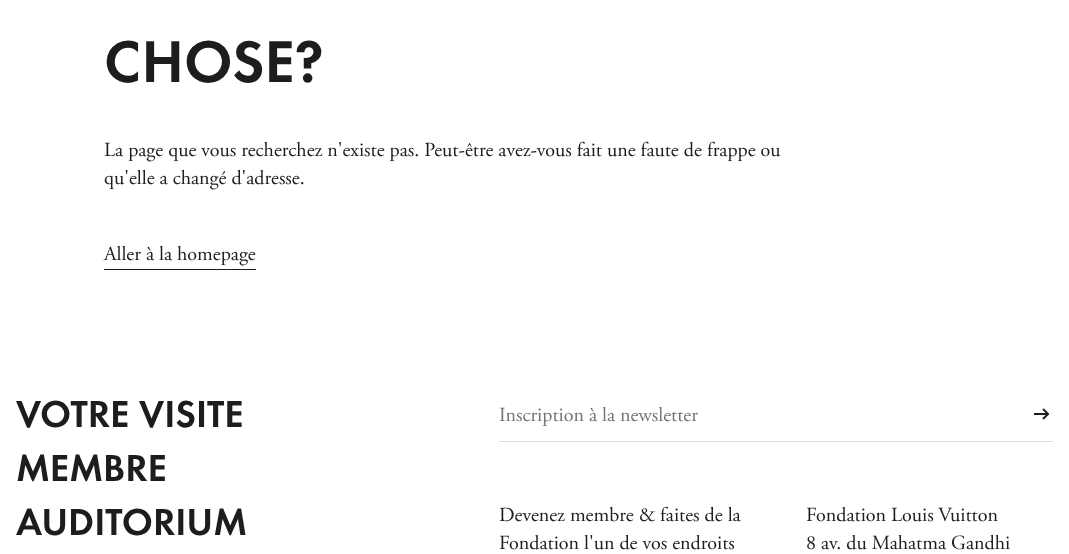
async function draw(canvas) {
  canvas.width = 1069;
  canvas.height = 554;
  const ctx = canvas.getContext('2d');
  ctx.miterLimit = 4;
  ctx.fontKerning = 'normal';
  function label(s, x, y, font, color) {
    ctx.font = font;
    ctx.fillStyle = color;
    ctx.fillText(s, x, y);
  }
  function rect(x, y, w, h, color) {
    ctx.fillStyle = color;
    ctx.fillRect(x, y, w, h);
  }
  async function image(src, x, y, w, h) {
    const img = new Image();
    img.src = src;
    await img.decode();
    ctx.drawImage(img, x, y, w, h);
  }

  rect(0, 0, 1069, 554, '#fff');
  label('CHOSE?', 104, 82, '600 61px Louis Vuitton', '#1d1d1d');
  label('La page que vous recherchez n\'existe pas. Peut-être avez-vous fait une faute de frappe ou', 104, 156, '20px Adobe Garamond', '#1d1d1d');
  label('qu\'elle a changé d\'adresse.', 104, 184, '20px Adobe Garamond', '#1d1d1d');
  rect(104, 269, 152, 1, '#1d1d1d');
  label('Aller à la homepage', 104, 260, '20px Adobe Garamond', '#1d1d1d');
  label('VOTRE VISITE', 16, 427, '600 39px Louis Vuitton', '#1d1d1d');
  label('MEMBRE', 16, 481, '600 39px Louis Vuitton', '#1d1d1d');
  label('AUDITORIUM', 16, 535, '600 39px Louis Vuitton', '#1d1d1d');
  rect(499, 441, 554, 1, '#ddddda');
  label('Inscription à la newsletter', 499, 421, '20px Adobe Garamond', '#757575');
  await image('assets/img1.png', 1034, 408, 16, 12);
  label('Devenez membre & faites de la', 499, 521, '20px Adobe Garamond', '#1d1d1d');
  label('Fondation l\'un de vos endroits', 499, 549, '20px Adobe Garamond', '#1d1d1d');
  label('Fondation Louis Vuitton', 806, 521, '20px Adobe Garamond', '#1d1d1d');
  label('8 av. du Mahatma Gandhi', 806, 549, '20px Adobe Garamond', '#1d1d1d');
}

draw(document.querySelector('canvas'));
